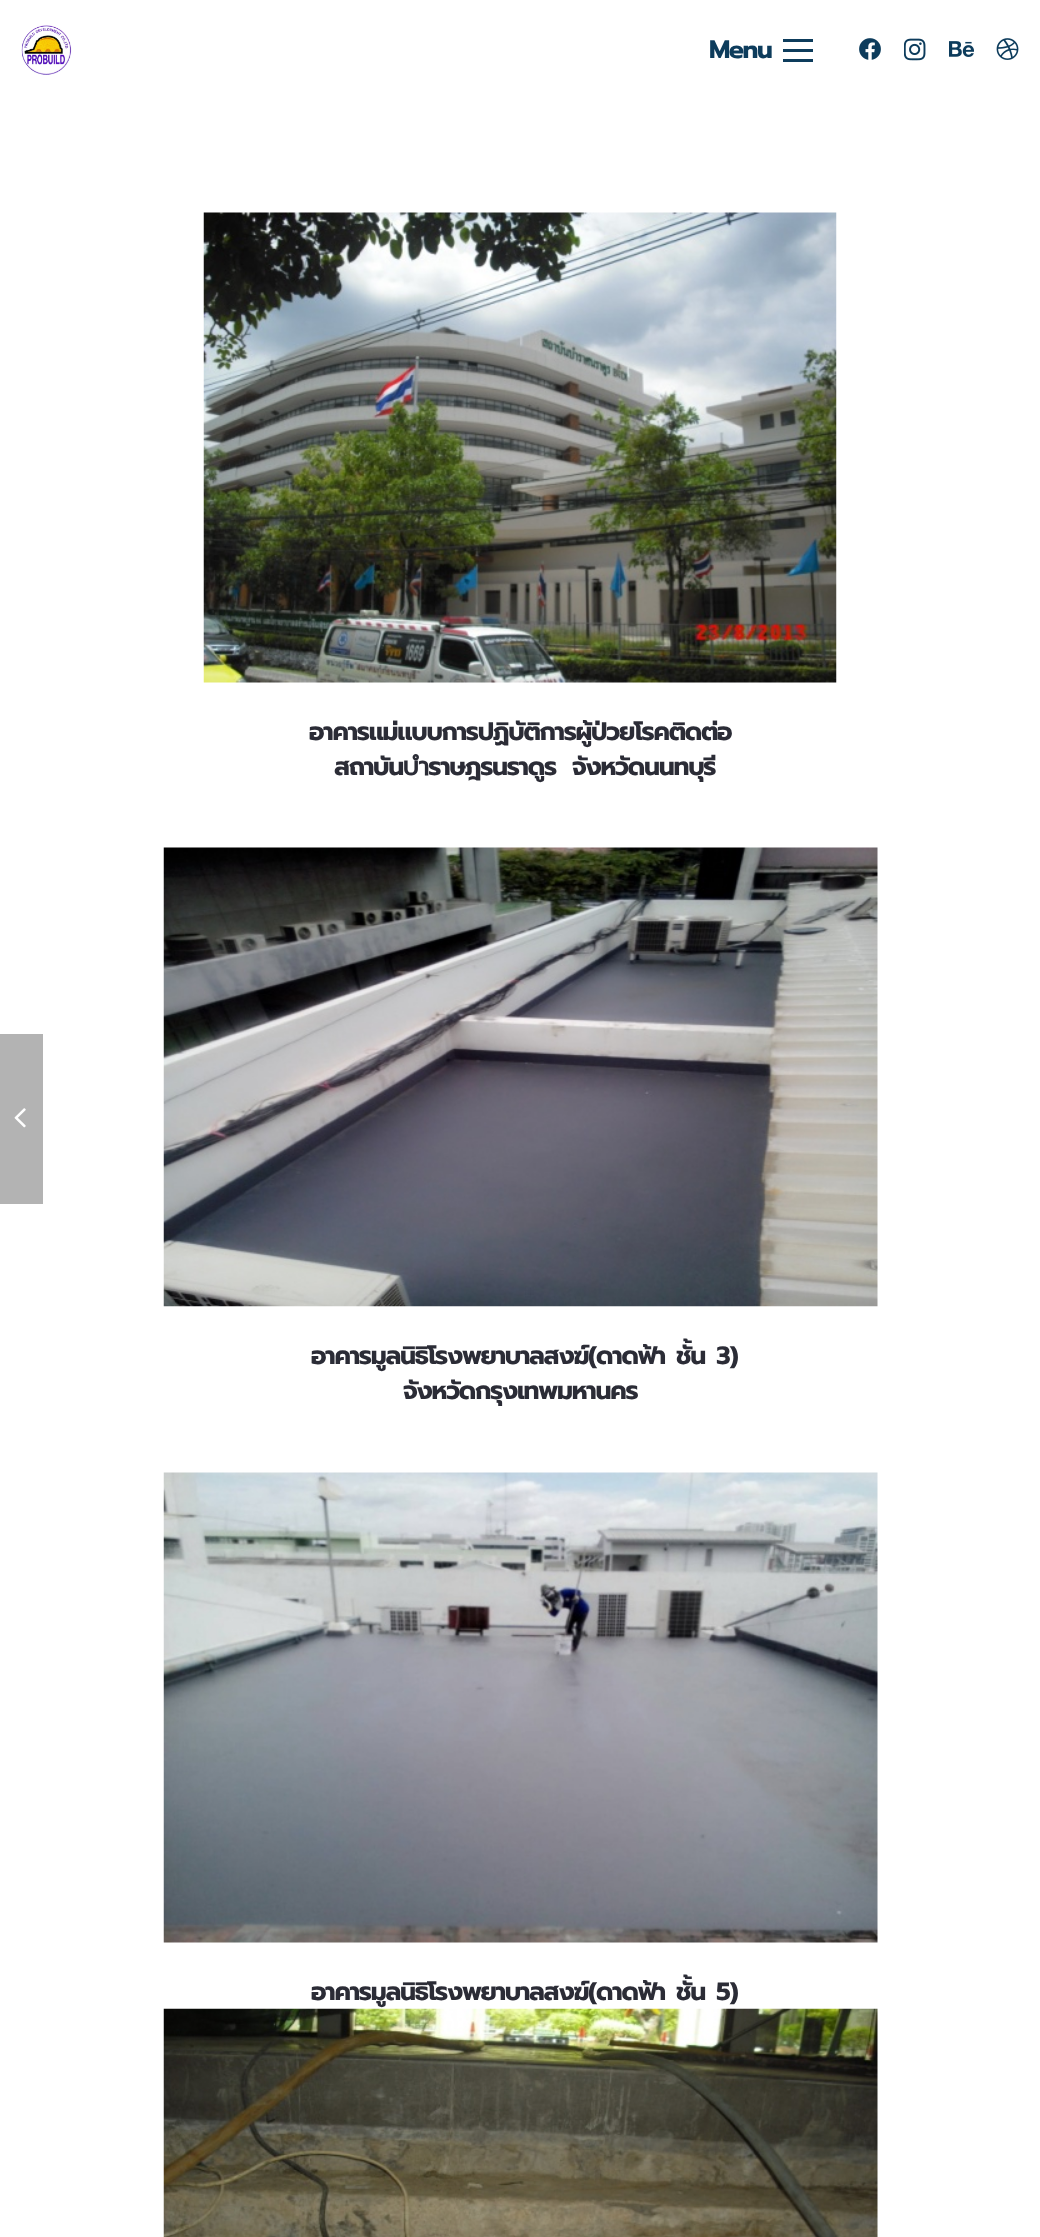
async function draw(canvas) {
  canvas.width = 1040;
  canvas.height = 2237;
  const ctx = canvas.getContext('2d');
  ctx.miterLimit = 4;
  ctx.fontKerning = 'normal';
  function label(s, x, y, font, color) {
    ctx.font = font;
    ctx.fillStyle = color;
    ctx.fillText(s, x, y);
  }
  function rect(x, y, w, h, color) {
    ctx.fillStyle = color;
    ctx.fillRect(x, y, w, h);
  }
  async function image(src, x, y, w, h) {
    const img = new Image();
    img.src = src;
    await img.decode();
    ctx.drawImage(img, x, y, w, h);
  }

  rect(0, 0, 1040, 2237, '#fff');
  await image('assets/img1.png', 21, 25, 51, 50);
  ctx.letterSpacing = '-1.5px';
  label('Menu', 709, 58, 'bold 25.5px Prompt', '#0d3c5c');
  rect(783, 49, 30, 3, '#0d3c5c');
  rect(783, 39, 30, 3, '#0d3c5c');
  rect(783, 59, 30, 3, '#0d3c5c');
  await image('assets/img2.png', 859, 38, 22, 22);
  await image('assets/img3.png', 904, 38, 22, 23);
  await image('assets/img4.png', 949, 41, 25, 16);
  await image('assets/img5.png', 996, 38, 23, 22);
  rect(0, 1034, 43, 170, '#b3b3b3');
  await image('assets/img6.png', 14, 1108, 12, 20);
  await image('assets/img7.png', 203, 212, 634, 471);
  ctx.letterSpacing = '-1.25px';
  label('อาคารแม่แบบการปฏิบัติการผู้ป่วยโรคติดต่อ', 309, 740, 'bold 25px Prompt', '#2b2c36');
  ctx.wordSpacing = '9px';
  label('สถาบันบำราษฎรนราดูร จังหวัดนนทบุรี', 334, 775, 'bold 25px Prompt', '#2b2c36');
  await image('assets/img8.png', 163, 847, 715, 460);
  ctx.wordSpacing = '4px';
  label('อาคารมูลนิธิโรงพยาบาลสงฆ์(ดาดฟ้า ชั้น 3)', 311, 1364, 'bold 25px Prompt', '#2b2c36');
  ctx.wordSpacing = '0px';
  label('จังหวัดกรุงเทพมหานคร', 403, 1399, 'bold 25px Prompt', '#2b2c36');
  await image('assets/img9.png', 163, 1472, 715, 471);
  ctx.wordSpacing = '4px';
  label('อาคารมูลนิธิโรงพยาบาลสงฆ์(ดาดฟ้า ชั้น 5)', 311, 2000, 'bold 25px Prompt', '#2b2c36');
  await image('assets/img10.png', 163, 2008, 715, 229);
}

draw(document.querySelector('canvas'));
